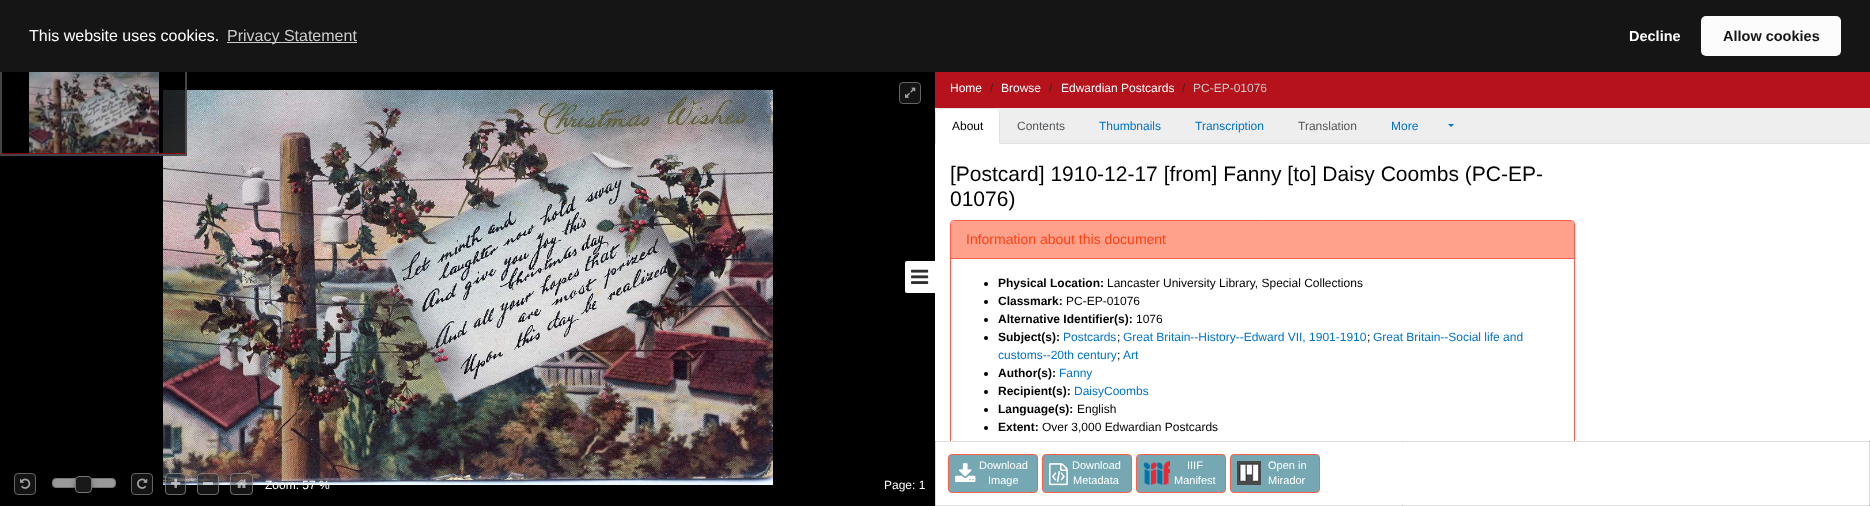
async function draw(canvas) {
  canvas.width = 1870;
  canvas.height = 506;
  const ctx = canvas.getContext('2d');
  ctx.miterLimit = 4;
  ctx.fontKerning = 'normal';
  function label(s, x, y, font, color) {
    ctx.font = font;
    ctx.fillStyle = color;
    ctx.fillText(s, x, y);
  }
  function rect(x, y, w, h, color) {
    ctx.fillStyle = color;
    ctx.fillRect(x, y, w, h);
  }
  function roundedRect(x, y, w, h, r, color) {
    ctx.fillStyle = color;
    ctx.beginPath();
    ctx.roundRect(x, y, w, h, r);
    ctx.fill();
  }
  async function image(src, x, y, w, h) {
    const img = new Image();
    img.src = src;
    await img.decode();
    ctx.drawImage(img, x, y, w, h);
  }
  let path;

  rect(0, 0, 1870, 506, '#000');
  await image('assets/img2.png', 163, 90, 610, 395);
  rect(163, 90, 24, 66, '#000000cc');
  ctx.strokeStyle = '#555555cc';
  ctx.lineWidth = 2;
  ctx.strokeRect(1, 69, 185, 86);
  await image('assets/img1.png', 29, 72, 130, 82);
  ctx.save();
  ctx.beginPath();
  ctx.rect(2, 70, 183, 84);
  ctx.clip();
  ctx.strokeStyle = '#990000cc';
  ctx.strokeRect(-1, 66, 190, 88);
  ctx.restore();
  rect(0, 0, 1870, 72, '#151515');
  label('This website uses cookies.', 29, 41, '16px Liberation Sans', '#fff');
  rect(227, 42, 130, 1, '#cecece');
  label('Privacy Statement', 227, 41, '16px Liberation Sans', '#ccc');
  label('Decline', 1629, 41, 'bold 14.5px Liberation Sans', '#fff');
  roundedRect(1701, 16, 140, 40, 5, '#fcfcfc');
  label('Allow cookies', 1723, 41, 'bold 14.5px Liberation Sans', '#151515');
  ctx.fillStyle = '#141414';
  ctx.beginPath();
  ctx.roundRect(899.5, 82.5, 21, 21, 3.5);
  ctx.fill();
  ctx.strokeStyle = '#646464';
  ctx.lineWidth = 1;
  ctx.stroke();
  await image('assets/img3.png', 905, 87, 11, 11);
  ctx.beginPath();
  ctx.roundRect(14.5, 473.5, 21, 21, 3.5);
  ctx.fill();
  ctx.stroke();
  await image('assets/img4.png', 20, 478, 11, 11);
  ctx.fillStyle = '#999';
  ctx.beginPath();
  ctx.roundRect(52.5, 478.5, 63, 9, 3.5);
  ctx.fill();
  ctx.strokeStyle = '#767676';
  ctx.stroke();
  ctx.fillStyle = '#00000059';
  ctx.filter = 'blur(2.5px)';
  ctx.beginPath();
  ctx.roundRect(75, 480, 17, 17, 4);
  ctx.fill();
  ctx.filter = 'none';
  ctx.fillStyle = '#191919';
  ctx.beginPath();
  ctx.roundRect(75.5, 476.5, 16, 16, 3.5);
  ctx.fill();
  ctx.stroke();
  ctx.fillStyle = '#141414';
  ctx.beginPath();
  ctx.roundRect(131.5, 473.5, 21, 21, 3.5);
  ctx.fill();
  ctx.strokeStyle = '#646464';
  ctx.stroke();
  await image('assets/img5.png', 137, 478, 11, 11);
  ctx.save();
  path = new Path2D('M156 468H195V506H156ZM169 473H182C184 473 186 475 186 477V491C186 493 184 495 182 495H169C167 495 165 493 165 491V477C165 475 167 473 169 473Z');
  ctx.clip(path, 'evenodd');
  ctx.fillStyle = '#00000036';
  ctx.filter = 'blur(2.5px)';
  ctx.beginPath();
  ctx.roundRect(165, 477, 21, 22, 4);
  ctx.fill();
  ctx.filter = 'none';
  ctx.restore();
  roundedRect(165, 473, 21, 22, 4, '#2929297a');
  ctx.beginPath();
  ctx.roundRect(165.5, 473.5, 20, 21, 3.5);
  ctx.strokeStyle = '#a7a7a799';
  ctx.stroke();
  await image('assets/img6.png', 171, 478, 10, 10);
  ctx.save();
  path = new Path2D('M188 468H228V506H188ZM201 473H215C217 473 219 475 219 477V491C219 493 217 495 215 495H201C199 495 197 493 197 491V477C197 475 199 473 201 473Z');
  ctx.clip(path, 'evenodd');
  ctx.fillStyle = '#00000036';
  ctx.filter = 'blur(2.5px)';
  ctx.beginPath();
  ctx.roundRect(197, 477, 22, 22, 4);
  ctx.fill();
  ctx.filter = 'none';
  ctx.restore();
  roundedRect(197, 473, 22, 22, 4, '#2929297a');
  ctx.beginPath();
  ctx.roundRect(197.5, 473.5, 21, 21, 3.5);
  ctx.stroke();
  rect(203, 482, 10, 3, '#ffffff99');
  ctx.save();
  path = new Path2D('M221 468H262V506H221ZM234 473H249C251 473 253 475 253 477V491C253 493 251 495 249 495H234C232 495 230 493 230 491V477C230 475 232 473 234 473Z');
  ctx.clip(path, 'evenodd');
  ctx.fillStyle = '#00000036';
  ctx.filter = 'blur(2.5px)';
  ctx.beginPath();
  ctx.roundRect(230, 477, 23, 22, 4);
  ctx.fill();
  ctx.filter = 'none';
  ctx.restore();
  roundedRect(230, 473, 23, 22, 4, '#2929297a');
  ctx.beginPath();
  ctx.roundRect(230.5, 473.5, 22, 21, 3.5);
  ctx.stroke();
  await image('assets/img7.png', 236, 479, 11, 9);
  label('Zoom: 57 %', 265, 489, '12px Liberation Sans', '#fff');
  label('Page: 1', 884, 489, '12px Liberation Sans', '#fff');
  rect(935, 108, 935, 35, '#eee');
  rect(935, 72, 935, 36, '#b5121b');
  label('Home', 950, 92, '12px Liberation Sans', '#fff');
  label('/', 990, 92, '12px Liberation Sans', '#462026');
  label('Browse', 1001, 92, '12px Liberation Sans', '#fff');
  label('/', 1049, 92, '12px Liberation Sans', '#462026');
  label('Edwardian Postcards', 1061, 92, '12px Liberation Sans', '#fff');
  label('/', 1182, 92, '12px Liberation Sans', '#462026');
  label('PC-EP-01076', 1193, 92, '12px Liberation Sans', '#ccc');
  ctx.fillStyle = '#fff';
  ctx.beginPath();
  ctx.roundRect(905, 261, 30, 32, [2, 0, 0, 2]);
  ctx.fill();
  await image('assets/img8.png', 911, 269, 18, 15);
  rect(1000, 143, 870, 1, '#dee2e6');
  ctx.fillStyle = '#fff';
  ctx.beginPath();
  ctx.roundRect(935, 108, 65, 36, [6, 6, 0, 0]);
  ctx.fill();
  ctx.fillStyle = '#dee2e6';
  path = new Path2D('M941 108C940 108 938 109 937 110C938 110 940 109 941 109H994C996 109 997 110 998 110C997 109 996 108 994 108ZM1000 144V114C1000 112.5 999 111 998 110L997.5 110.5C998.5 111 999 112.5 999 114V143Z');
  ctx.fill(path);
  ctx.fillStyle = '#fff';
  path = new Path2D('M1000 144L999 143H936L935 144Z');
  ctx.fill(path);
  ctx.fillStyle = '#dee2e6';
  path = new Path2D('M935 144L936 143V114C936 112.5 936.5 111 937.5 110.5L937 110C936 111 935 112.5 935 114Z');
  ctx.fill(path);
  label('About', 952, 130, '12px Liberation Sans', '#000');
  label('Contents', 1017, 130, '12px Liberation Sans', '#54575a');
  label('Thumbnails', 1099, 130, '12px Liberation Sans', '#0072cf');
  label('Transcription', 1195, 130, '12px Liberation Sans', '#0072cf');
  label('Translation', 1298, 130, '12px Liberation Sans', '#54575a');
  label('More', 1391, 130, '12px Liberation Sans', '#0072cf');
  path = new Path2D('M1448 124H1454L1451 127Z');
  ctx.fill(path);
  rect(935, 144, 935, 297, '#fff');
  label('[Postcard] 1910-12-17 [from] Fanny [to] Daisy Coombs (PC-EP-', 950, 181, '21px Liberation Sans', '#000');
  label('01076)', 950, 206, '21px Liberation Sans', '#000');
  ctx.fillStyle = '#fff';
  ctx.beginPath();
  ctx.rect(935.5, 441.5, 934, 64);
  ctx.fill();
  ctx.strokeStyle = '#ddd';
  ctx.stroke();
  ctx.save();
  ctx.beginPath();
  ctx.rect(935, 144, 935, 297);
  ctx.clip();
  ctx.beginPath();
  ctx.roundRect(950.5, 220.5, 624, 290, 3.5);
  ctx.strokeStyle = '#ff604a';
  ctx.stroke();
  ctx.restore();
  ctx.fillStyle = '#ffa18b';
  ctx.beginPath();
  ctx.roundRect(951, 221, 623, 38, [3, 3, 0, 0]);
  ctx.fill();
  rect(951, 258, 623, 1, '#ff604a');
  label('Information about this document', 966, 244, '14px Liberation Sans', '#ff4216');
  ctx.fillStyle = '#000';
  ctx.beginPath();
  ctx.arc(986, 284, 2, 0, 2 * Math.PI);
  ctx.fill();
  label('Physical Location:', 998, 287, 'bold 12px Liberation Sans', '#000');
  label('Lancaster University Library, Special Collections', 1107, 287, '12px Liberation Sans', '#000');
  ctx.beginPath();
  ctx.arc(986, 302, 2, 0, 2 * Math.PI);
  ctx.fill();
  label('Classmark:', 998, 305, 'bold 12px Liberation Sans', '#000');
  label('PC-EP-01076', 1066, 305, '12px Liberation Sans', '#000');
  ctx.beginPath();
  ctx.arc(986, 320, 2, 0, 2 * Math.PI);
  ctx.fill();
  label('Alternative Identifier(s):', 998, 323, 'bold 12px Liberation Sans', '#000');
  label('1076', 1136, 323, '12px Liberation Sans', '#000');
  ctx.beginPath();
  ctx.arc(986, 338, 2, 0, 2 * Math.PI);
  ctx.fill();
  label('Subject(s):', 998, 341, 'bold 12px Liberation Sans', '#000');
  label('Postcards', 1063, 341, '12px Liberation Sans', '#0072cf');
  label(';', 1117, 341, '12px Liberation Sans', '#000');
  label('Great Britain--History--Edward VII, 1901-1910', 1123, 341, '12px Liberation Sans', '#0072cf');
  label(';', 1367, 341, '12px Liberation Sans', '#000');
  label('Great Britain--Social life and', 1373, 341, '12px Liberation Sans', '#0072cf');
  label('customs--20th century', 998, 359, '12px Liberation Sans', '#0072cf');
  label(';', 1117, 359, '12px Liberation Sans', '#000');
  label('Art', 1123, 359, '12px Liberation Sans', '#0072cf');
  ctx.fillStyle = '#000';
  ctx.beginPath();
  ctx.arc(986, 374, 2, 0, 2 * Math.PI);
  ctx.fill();
  label('Author(s):', 998, 377, 'bold 12px Liberation Sans', '#000');
  label('Fanny', 1059, 377, '12px Liberation Sans', '#0072cf');
  ctx.fillStyle = '#000';
  ctx.beginPath();
  ctx.arc(986, 392, 2, 0, 2 * Math.PI);
  ctx.fill();
  label('Recipient(s):', 998, 395, 'bold 12px Liberation Sans', '#000');
  label('DaisyCoombs', 1074, 395, '12px Liberation Sans', '#0072cf');
  ctx.fillStyle = '#000';
  ctx.beginPath();
  ctx.arc(986, 410, 2, 0, 2 * Math.PI);
  ctx.fill();
  label('Language(s):', 998, 413, 'bold 12px Liberation Sans', '#000');
  label('English', 1077, 413, '12px Liberation Sans', '#000');
  ctx.beginPath();
  ctx.arc(986, 428, 2, 0, 2 * Math.PI);
  ctx.fill();
  label('Extent:', 998, 431, 'bold 12px Liberation Sans', '#000');
  label('Over 3,000 Edwardian Postcards', 1042, 431, '12px Liberation Sans', '#000');
  ctx.fillStyle = '#75a8b3';
  ctx.beginPath();
  ctx.roundRect(948.5, 454.5, 89, 38, 3.5);
  ctx.fill();
  ctx.strokeStyle = '#ff604a';
  ctx.stroke();
  await image('assets/img9.png', 955, 463, 21, 19);
  label('Download', 979, 469, '11px Liberation Sans', '#fff');
  label('Image', 988, 484, '11px Liberation Sans', '#fff');
  ctx.fillStyle = '#75a8b3';
  ctx.beginPath();
  ctx.roundRect(1042.5, 454.5, 89, 38, 3.5);
  ctx.fill();
  ctx.stroke();
  await image('assets/img10.png', 1049, 463, 19, 23);
  label('Download', 1072, 469, '11px Liberation Sans', '#fff');
  label('Metadata', 1073, 484, '11px Liberation Sans', '#fff');
  ctx.fillStyle = '#75a8b3';
  ctx.beginPath();
  ctx.roundRect(1136.5, 454.5, 89, 38, 3.5);
  ctx.fill();
  ctx.stroke();
  await image('assets/img11.png', 1143, 461, 27, 24);
  label('IIIF', 1187, 469, '11px Liberation Sans', '#fff');
  label('Manifest', 1174, 484, '11px Liberation Sans', '#fff');
  ctx.fillStyle = '#75a8b3';
  ctx.beginPath();
  ctx.roundRect(1230.5, 454.5, 89, 38, 3.5);
  ctx.fill();
  ctx.stroke();
  await image('assets/img12.png', 1237, 461, 24, 24);
  label('Open in', 1268, 469, '11px Liberation Sans', '#fff');
  label('Mirador', 1268, 484, '11px Liberation Sans', '#fff');
}

draw(document.querySelector('canvas'));
